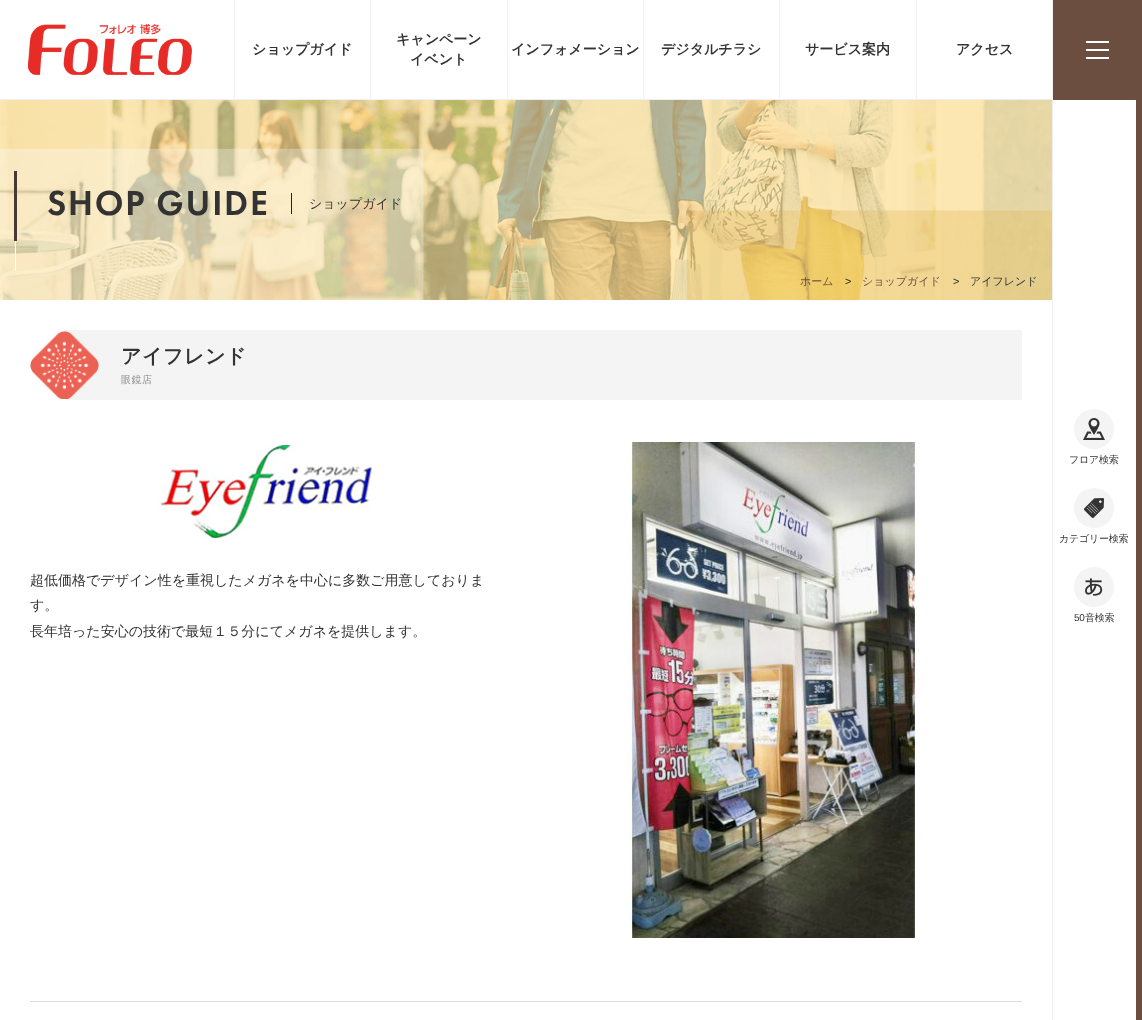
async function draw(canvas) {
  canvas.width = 1142;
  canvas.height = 1020;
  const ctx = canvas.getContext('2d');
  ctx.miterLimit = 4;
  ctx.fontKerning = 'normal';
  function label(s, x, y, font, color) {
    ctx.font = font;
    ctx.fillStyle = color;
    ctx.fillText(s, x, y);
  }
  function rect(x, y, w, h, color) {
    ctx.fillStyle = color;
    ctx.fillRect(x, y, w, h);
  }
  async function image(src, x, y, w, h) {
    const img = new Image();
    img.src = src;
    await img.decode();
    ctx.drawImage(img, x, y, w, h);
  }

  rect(0, 0, 1142, 1020, '#fff');
  rect(0, 99, 1052, 1, '#eeeff3');
  await image('assets/img1.png', 28, 24, 164, 51);
  rect(234, 0, 1, 100, '#f0f0f0');
  label('ショップガイド', 252, 54, 'bold 14px WenQuanYi Zen Hei', '#333');
  rect(370, 0, 1, 100, '#f0f0f0');
  label('キャンペーン', 396, 44, 'bold 14px WenQuanYi Zen Hei', '#333');
  label('イベント', 410, 64, 'bold 14px WenQuanYi Zen Hei', '#333');
  rect(507, 0, 1, 100, '#f0f0f0');
  label('インフォメーション', 511, 54, 'bold 14px WenQuanYi Zen Hei', '#333');
  rect(643, 0, 1, 100, '#f0f0f0');
  label('デジタルチラシ', 661, 54, 'bold 14px WenQuanYi Zen Hei', '#333');
  rect(779, 0, 1, 100, '#f0f0f0');
  label('サービス案内', 805, 54, 'bold 14px WenQuanYi Zen Hei', '#333');
  rect(916, 0, 1, 100, '#f0f0f0');
  label('アクセス', 956, 54, 'bold 14px WenQuanYi Zen Hei', '#333');
  rect(1052, 0, 1, 100, '#f0f0f0');
  rect(1053, 0, 89, 100, '#6b4e40');
  rect(1086, 41, 23, 2, '#fff');
  rect(1086, 57, 23, 2, '#fff');
  rect(1086, 49, 23, 2, '#fff');
  rect(1136, 100, 6, 920, '#6b4e40');
  rect(1052, 100, 1, 920, '#efefef');
  ctx.fillStyle = '#f4f4f4';
  ctx.beginPath();
  ctx.arc(1094, 429, 20, 0, 2 * Math.PI);
  ctx.fill();
  await image('assets/img2.png', 1083, 418, 22, 22);
  ctx.letterSpacing = '-0.25px';
  label('フロア検索', 1069, 463, '500 10px WenQuanYi Zen Hei', '#333');
  ctx.fillStyle = '#f4f4f4';
  ctx.beginPath();
  ctx.arc(1094, 508, 20, 0, 2 * Math.PI);
  ctx.fill();
  await image('assets/img3.png', 1084, 498, 20, 20);
  label('カテゴリー検索', 1059, 542, '500 10px WenQuanYi Zen Hei', '#333');
  ctx.fillStyle = '#f4f4f4';
  ctx.beginPath();
  ctx.arc(1094, 587, 20, 0, 2 * Math.PI);
  ctx.fill();
  await image('assets/img4.png', 1085, 578, 18, 18);
  label('50', 1074, 621, '10px Liberation Sans', '#333');
  label('音検索', 1085, 621, '500 10px WenQuanYi Zen Hei', '#333');
  await image('assets/img5.png', 0, 100, 1052, 200);
  rect(15, 241, 1, 30, '#fff');
  rect(14, 171, 3, 70, '#473933');
  ctx.letterSpacing = '1.75px';
  label('SHOP GUIDE', 47, 215, '500 36px Futura PT', '#333');
  rect(291, 193, 1, 21, '#242323');
  ctx.letterSpacing = '0px';
  label('ショップガイド', 309, 208, '500 13px WenQuanYi Zen Hei', '#333');
  label('ホーム', 800, 285, '500 11px WenQuanYi Zen Hei', '#6b4e40');
  label('>', 845, 285, '11px Liberation Sans', '#333');
  label('ショップガイド', 862, 285, '500 11px WenQuanYi Zen Hei', '#6b4e40');
  label('>', 953, 285, '11px Liberation Sans', '#333');
  label('アイフレンド', 970, 285, '500 11px WenQuanYi Zen Hei', '#333');
  rect(65, 330, 957, 70, '#f4f4f4');
  await image('assets/img6.png', 30, 331, 69, 68);
  ctx.letterSpacing = '0.5px';
  label('アイフレンド', 121, 363, 'bold 20px WenQuanYi Zen Hei', '#333');
  label('眼鏡店', 121, 383, '500 10px WenQuanYi Zen Hei', '#8f8f8f');
  await image('assets/img7.png', 158, 445, 220, 93);
  ctx.letterSpacing = '0px';
  label('超低価格でデザイン性を重視したメガネを中心に多数ご用意しておりま', 30, 585, '500 14px WenQuanYi Zen Hei', '#333');
  label('す。', 30, 610, '500 14px WenQuanYi Zen Hei', '#333');
  label('長年培った安心の技術で最短１５分にてメガネを提供します。', 30, 636, '500 14px WenQuanYi Zen Hei', '#333');
  await image('assets/img8.png', 629, 442, 286, 496);
  rect(30, 1001, 992, 1, '#dcdcdc');
}

draw(document.querySelector('canvas'));
